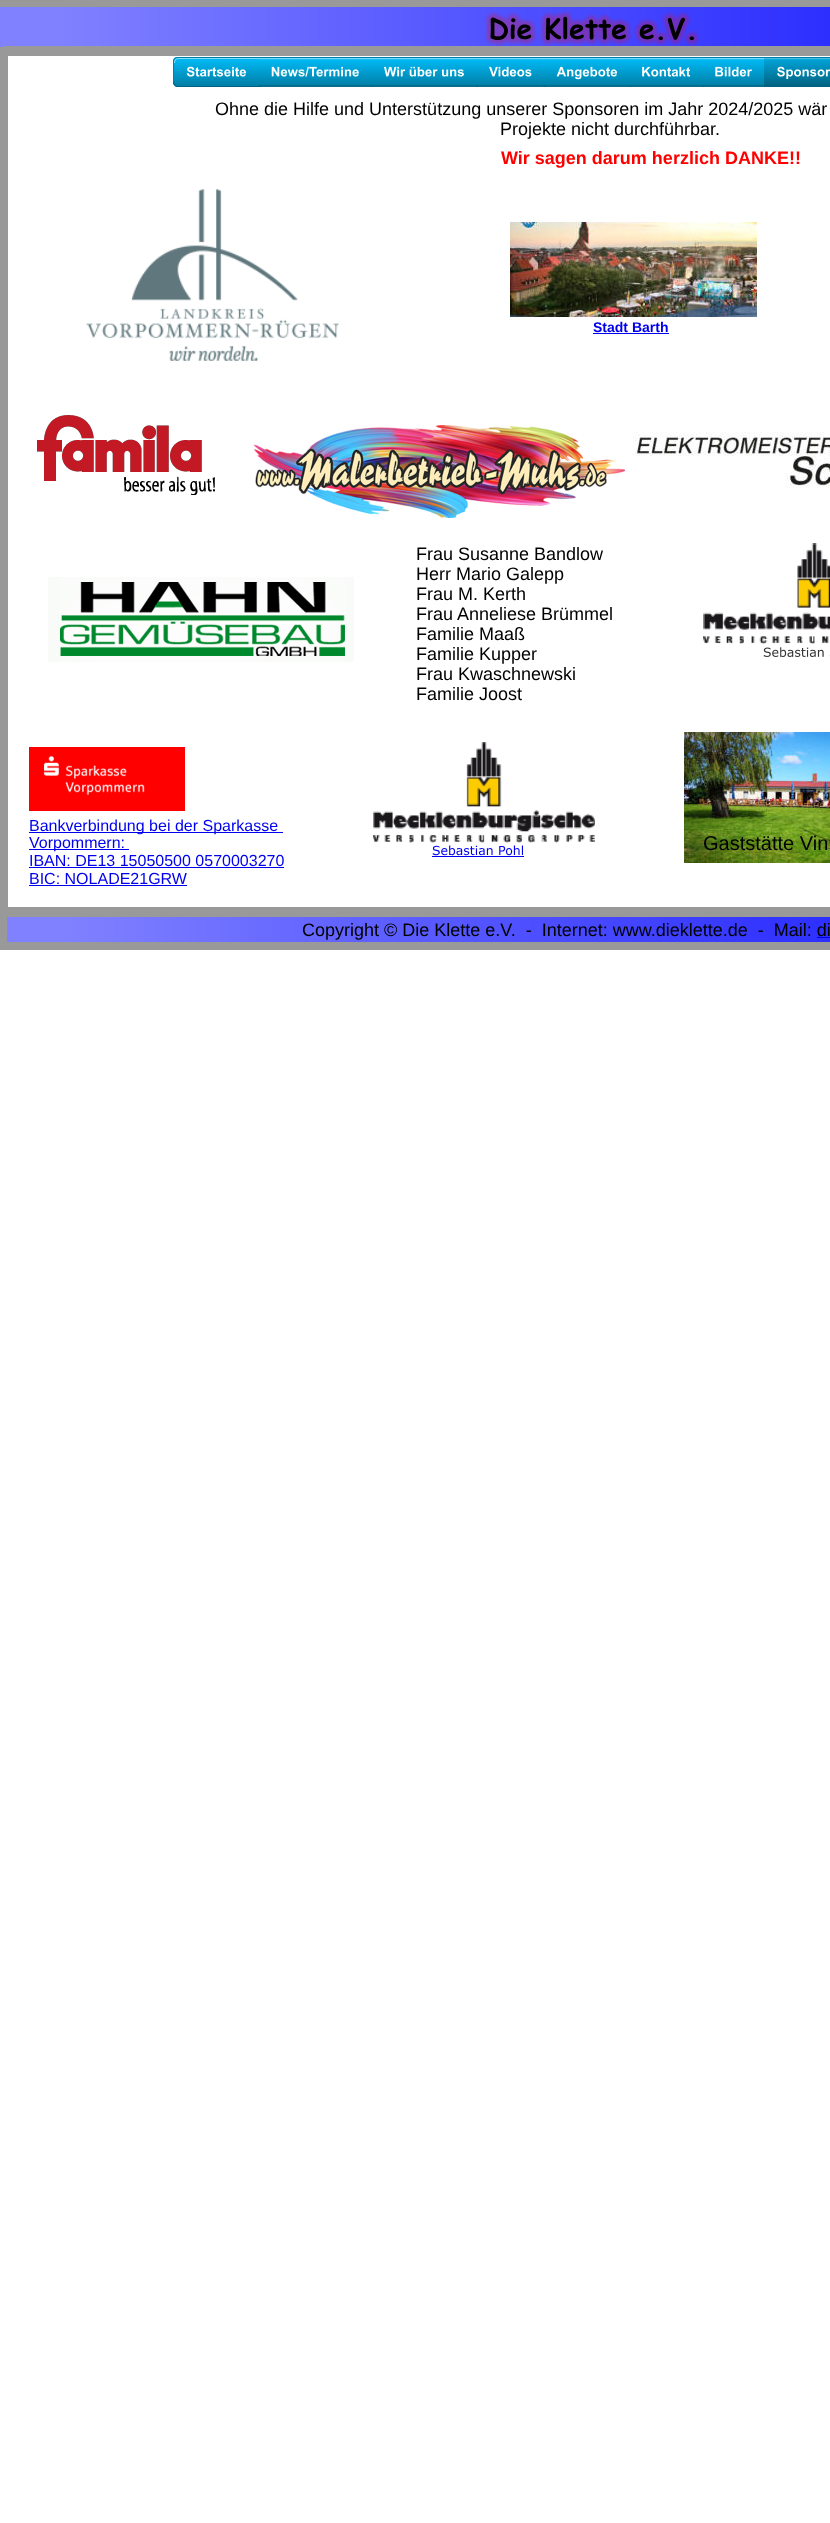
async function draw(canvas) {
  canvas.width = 830;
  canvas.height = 2523;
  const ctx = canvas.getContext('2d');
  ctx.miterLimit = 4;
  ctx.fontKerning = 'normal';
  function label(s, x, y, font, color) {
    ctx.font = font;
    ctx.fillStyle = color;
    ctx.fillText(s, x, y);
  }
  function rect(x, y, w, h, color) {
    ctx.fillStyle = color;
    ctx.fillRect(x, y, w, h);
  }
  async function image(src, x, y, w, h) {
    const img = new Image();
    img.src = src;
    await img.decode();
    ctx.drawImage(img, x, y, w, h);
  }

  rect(0, 0, 830, 2523, '#fff');
  ctx.strokeStyle = '#999';
  ctx.lineWidth = 8;
  ctx.strokeRect(4, 4, 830, 942);
  await image('assets/img1.png', 0, 7, 830, 40);
  await image('assets/img2.png', 485, 11, 215, 35);
  rect(3, 46, 827, 10, '#999');
  await image('assets/img3.png', 173, 57, 88, 30);
  await image('assets/img4.png', 258, 57, 115, 30);
  await image('assets/img5.png', 371, 57, 108, 30);
  await image('assets/img6.png', 476, 57, 70, 30);
  await image('assets/img7.png', 543, 57, 89, 30);
  await image('assets/img8.png', 629, 57, 76, 30);
  await image('assets/img9.png', 702, 57, 65, 30);
  await image('assets/img10.png', 764, 57, 66, 30);
  await image('assets/img11.png', 764, 58, 66, 29);
  label('Ohne die Hilfe und Unterstützung unserer Sponsoren im Jahr 2024/2025 wär', 215, 115, '18px Liberation Sans', '#000');
  label('Projekte nicht durchführbar.', 500, 135, '18px Liberation Sans', '#000');
  label('Wir sagen darum herzlich DANKE!!', 501, 164, 'bold 18px Liberation Sans', '#f00');
  await image('assets/img12.png', 86, 189, 253, 172);
  await image('assets/img13.png', 510, 222, 247, 95);
  label('Stadt Barth', 593, 332, 'bold 14px Liberation Sans', '#00e');
  rect(593, 333, 76, 1, '#00e');
  await image('assets/img14.png', 37, 415, 178, 80);
  await image('assets/img15.png', 254, 425, 371, 93);
  await image('assets/img16.png', 633, 432, 197, 56);
  await image('assets/img17.png', 48, 577, 306, 85);
  label('Frau Susanne Bandlow', 416, 560, '18px Liberation Sans', '#000');
  label('Herr Mario Galepp', 416, 580, '18px Liberation Sans', '#000');
  label('Frau M. Kerth', 416, 600, '18px Liberation Sans', '#000');
  label('Frau Anneliese Brümmel', 416, 620, '18px Liberation Sans', '#000');
  label('Familie Maaß', 416, 640, '18px Liberation Sans', '#000');
  label('Familie Kupper', 416, 660, '18px Liberation Sans', '#000');
  label('Frau Kwaschnewski', 416, 680, '18px Liberation Sans', '#000');
  label('Familie Joost', 416, 700, '18px Liberation Sans', '#000');
  await image('assets/img18.png', 703, 543, 127, 114);
  await image('assets/img19.png', 29, 747, 156, 64);
  rect(29, 832, 254, 1, '#00e');
  label('Bankverbindung bei der Sparkasse', 29, 831, '16px Liberation Sans', '#00e');
  rect(29, 849, 100, 1, '#00e');
  label('Vorpommern:', 29, 848, '16px Liberation Sans', '#00e');
  label('IBAN: DE13 15050500 0570003270', 29, 866, '16px Liberation Sans', '#00e');
  rect(29, 867, 255, 1, '#00e');
  label('BIC: NOLADE21GRW', 29, 884, '16px Liberation Sans', '#00e');
  rect(29, 885, 158, 1, '#00e');
  await image('assets/img20.png', 684, 732, 146, 131);
  await image('assets/img21.png', 373, 742, 222, 101);
  label('Sebastian Pohl', 432, 855, '12.5px Verdana', '#00e');
  rect(432, 856, 92, 1, '#00e');
  label('Gaststätte Vin', 703, 850, '20px Liberation Sans', '#000');
  rect(8, 907, 822, 10, '#999');
  await image('assets/img22.png', 7, 917, 823, 25);
  label('Copyright © Die Klette e.V.  -  Internet: www.dieklette.de  -  Mail: di', 302, 936, '18px Liberation Sans', '#000');
  rect(817, 937, 13, 1, '#00e');
}

draw(document.querySelector('canvas'));
